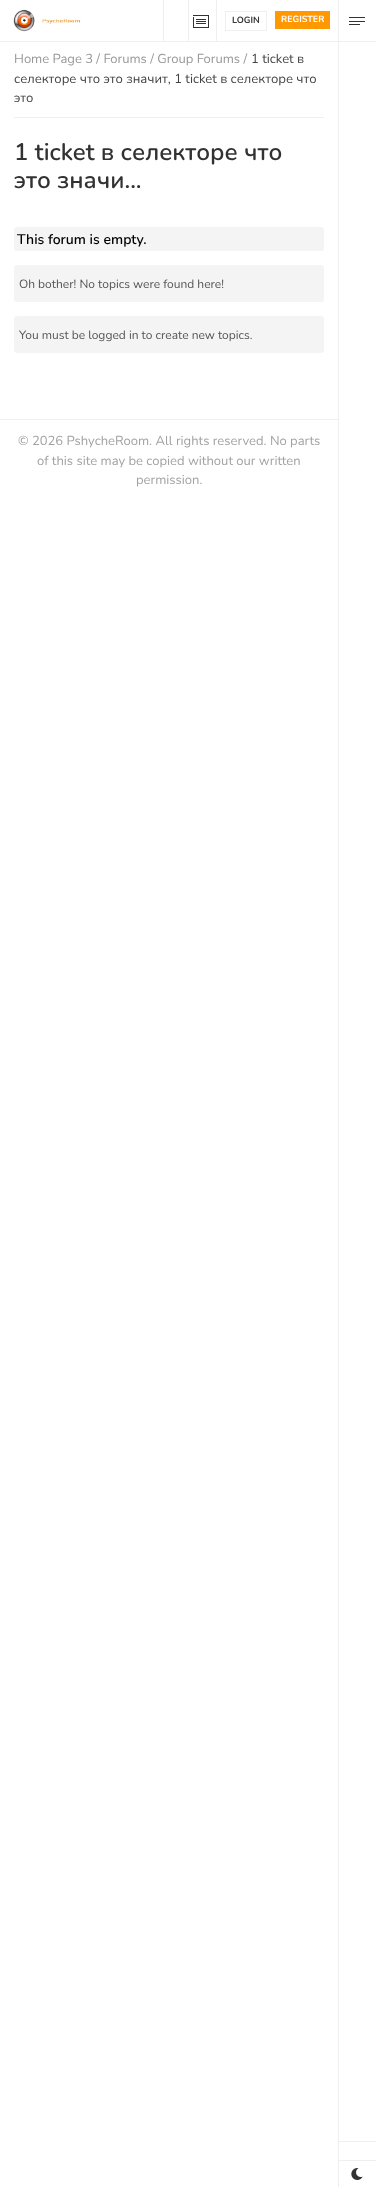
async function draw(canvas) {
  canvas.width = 376;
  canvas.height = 2187;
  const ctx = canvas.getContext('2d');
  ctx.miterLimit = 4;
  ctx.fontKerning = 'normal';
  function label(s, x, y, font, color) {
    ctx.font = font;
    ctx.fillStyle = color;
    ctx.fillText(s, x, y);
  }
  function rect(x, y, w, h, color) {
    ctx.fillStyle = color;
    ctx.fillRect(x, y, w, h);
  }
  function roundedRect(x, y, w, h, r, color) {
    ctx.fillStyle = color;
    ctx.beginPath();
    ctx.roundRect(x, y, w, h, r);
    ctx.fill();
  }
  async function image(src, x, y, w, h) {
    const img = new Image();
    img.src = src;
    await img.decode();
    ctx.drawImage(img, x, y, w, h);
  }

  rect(0, 0, 376, 2187, '#fff');
  rect(0, 41, 338, 1, '#efefef');
  await image('assets/img1.png', 13, 9, 68, 23);
  rect(188, 0, 1, 42, '#efefef');
  rect(163, 0, 1, 42, '#efefef');
  await image('assets/img2.png', 193, 15, 16, 13);
  rect(216, 0, 1, 41, '#efefef');
  ctx.strokeStyle = '#efefef';
  ctx.strokeRect(225.5, 11.5, 41, 19);
  label('LOGIN', 232, 23, 'bold 9px Nunito', '#383838');
  rect(275, 11, 55, 18, '#ff9801');
  label('REGISTER', 281, 22, 'bold 9px Nunito', '#fff');
  rect(338, 0, 1, 2187, '#eee');
  rect(349, 17, 16, 1, '#323232');
  rect(349, 21, 16, 1, '#323232');
  rect(349, 24, 11, 1, '#323232');
  rect(339, 41, 37, 1, '#efefef');
  rect(339, 2141, 37, 1, '#efefef');
  rect(339, 2160, 37, 1, '#efefef');
  await image('assets/img3.png', 351, 2168, 12, 12);
  rect(14, 117, 310, 1, '#efefef');
  label('Home Page 3 / Forums / Group Forums /', 14, 63, '13px Nunito', '#989898');
  label('1 ticket в', 251, 63, '13px Nunito', '#444');
  label('селекторе что это значит, 1 ticket в селекторе что', 14, 83, '13px Nunito', '#444');
  label('это', 14, 102, '13px Nunito', '#444');
  label('1 ticket в селекторе что', 14, 160, '600 24px Nunito', '#323232');
  label('это значи...', 14, 188, '600 24px Nunito', '#323232');
  roundedRect(14, 227, 310, 24, 3, '#f4f4f4');
  label('This forum is empty.', 17, 244, '600 14px Nunito', '#000');
  roundedRect(14, 265, 310, 37, 3, '#f4f4f4');
  label('Oh bother! No topics were found here!', 19, 288, '12px Nunito', '#555');
  roundedRect(14, 316, 310, 37, 3, '#f4f4f4');
  label('You must be logged in to create new topics.', 19, 339, '12px Nunito', '#555');
  rect(0, 419, 338, 1, '#efefef');
  label('© 2026 PshycheRoom. All rights reserved. No parts', 18, 445, '13px Nunito', '#a2a2a2');
  label('of this site may be copied without our written', 37, 465, '13px Nunito', '#a2a2a2');
  label('permission.', 136, 484, '13px Nunito', '#a2a2a2');
}

draw(document.querySelector('canvas'));
